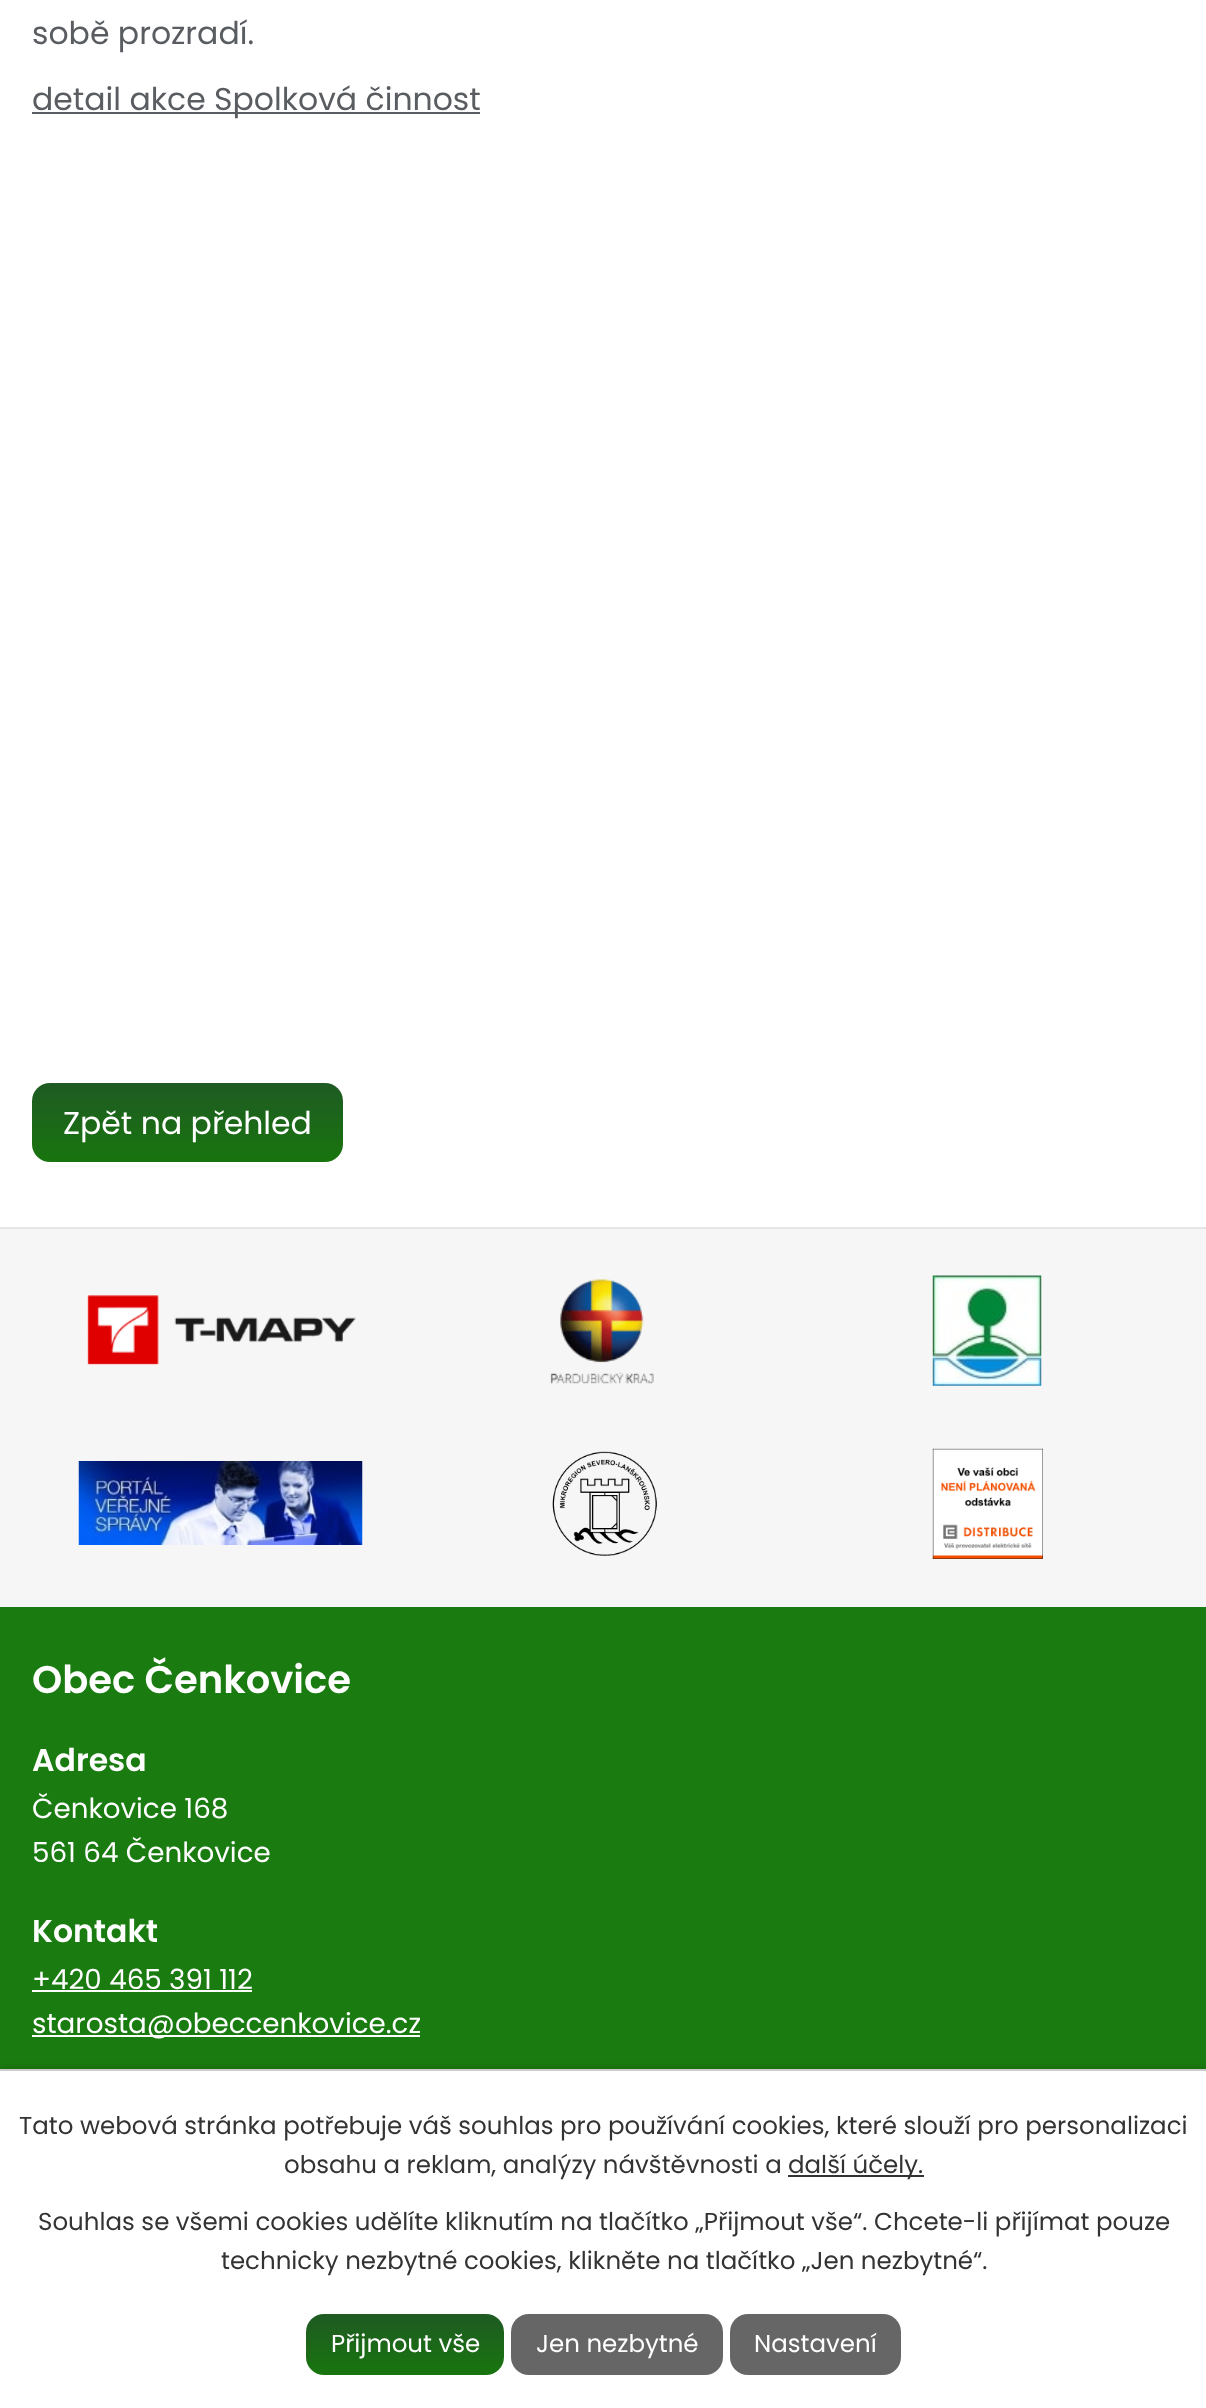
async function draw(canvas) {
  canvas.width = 1206;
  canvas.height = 2408;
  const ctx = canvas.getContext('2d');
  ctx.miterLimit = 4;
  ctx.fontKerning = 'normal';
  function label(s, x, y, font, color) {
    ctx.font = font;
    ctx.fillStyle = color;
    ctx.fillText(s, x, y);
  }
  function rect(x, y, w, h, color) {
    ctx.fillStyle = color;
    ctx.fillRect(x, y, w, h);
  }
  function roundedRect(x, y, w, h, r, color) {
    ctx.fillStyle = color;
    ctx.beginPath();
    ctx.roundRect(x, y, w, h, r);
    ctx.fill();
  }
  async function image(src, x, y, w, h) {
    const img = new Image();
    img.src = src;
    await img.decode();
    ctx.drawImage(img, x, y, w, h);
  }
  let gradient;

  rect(0, 0, 1206, 2408, '#fff');
  label('sobě prozradí.', 32, 44, '31.5px Poppins', '#595c60');
  rect(32, 112, 448, 2, '#595c60');
  label('detail akce Spolková činnost', 32, 110, '31.5px Poppins', '#595c60');
  gradient = ctx.createLinearGradient(187, 1083, 187, 1162);
  gradient.addColorStop(0, '#1f5a23');
  gradient.addColorStop(1, '#18750e');
  ctx.fillStyle = gradient;
  ctx.beginPath();
  ctx.roundRect(32, 1083, 311, 79, 18);
  ctx.fill();
  label('Zpět na přehled', 63, 1134, '31.5px Poppins', '#fff');
  rect(0, 1229, 1206, 378, '#f6f6f6');
  rect(0, 1227, 1206, 2, '#e5e5e5');
  await image('assets/img1.png', 87, 1295, 269, 70);
  await image('assets/img2.png', 550, 1279, 104, 105);
  await image('assets/img3.png', 932, 1275, 110, 111);
  await image('assets/img4.png', 78, 1461, 285, 84);
  await image('assets/img5.png', 552, 1451, 105, 105);
  await image('assets/img6.png', 932, 1448, 111, 111);
  rect(0, 1607, 1206, 462, '#1a7b10');
  label('Obec Čenkovice', 32, 1693, '600 38.5px Poppins', '#fff');
  label('Adresa', 32, 1771, '600 31.5px Poppins', '#fff');
  label('Čenkovice 168', 32, 1818, '27.75px Poppins', '#fff');
  label('561 64 Čenkovice', 32, 1862, '27.75px Poppins', '#fff');
  label('Kontakt', 32, 1942, '600 31.5px Poppins', '#fff');
  label('+420 465 391 112', 32, 1989, '27.75px Poppins', '#fff');
  rect(32, 1990, 220, 2, '#fff');
  rect(32, 2035, 388, 2, '#fff');
  label('starosta@obeccenkovice.cz', 32, 2033, '27.75px Poppins', '#fff');
  ctx.fillStyle = '#00000033';
  ctx.filter = 'blur(4.5px)';
  ctx.beginPath();
  ctx.rect(0, 2069, 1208, 339);
  ctx.fill();
  ctx.filter = 'none';
  rect(0, 2071, 1206, 337, '#fff');
  rect(0, 2069, 1206, 2, '#ccc');
  label('Tato webová stránka potřebuje váš souhlas pro používání cookies, které slouží pro personalizaci', 19, 2134, '24.5px Poppins', '#333');
  label('obsahu a reklam, analýzy návštěvnosti a', 284, 2173, '24.5px Poppins', '#333');
  rect(788, 2175, 136, 2, '#333');
  label('další účely.', 788, 2173, '24.5px Poppins', '#333');
  label('Souhlas se všemi cookies udělíte kliknutím na tlačítko „Přijmout vše“. Chcete-li přijímat pouze', 38, 2230, '24.5px Poppins', '#333');
  label('technicky nezbytné cookies, klikněte na tlačítko „Jen nezbytné“.', 221, 2269, '24.5px Poppins', '#333');
  gradient = ctx.createLinearGradient(405, 2314, 405, 2375);
  gradient.addColorStop(0, '#1f5a23');
  gradient.addColorStop(1, '#18750e');
  ctx.fillStyle = gradient;
  ctx.beginPath();
  ctx.roundRect(306, 2314, 198, 61, 18);
  ctx.fill();
  label('Přijmout vše', 331, 2352, '24.5px Poppins', '#fff');
  roundedRect(511, 2314, 212, 61, 18, '#666');
  label('Jen nezbytné', 536, 2352, '24.5px Poppins', '#fff');
  roundedRect(730, 2314, 171, 61, 18, '#666');
  label('Nastavení', 754, 2352, '24.5px Poppins', '#fff');
}

draw(document.querySelector('canvas'));
